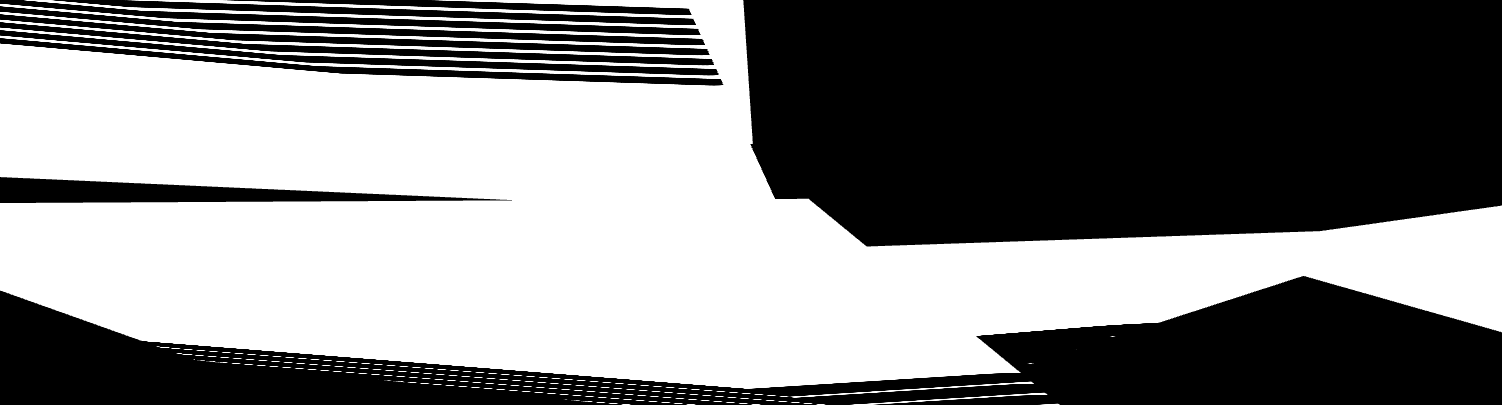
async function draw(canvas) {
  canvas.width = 1502;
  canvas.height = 405;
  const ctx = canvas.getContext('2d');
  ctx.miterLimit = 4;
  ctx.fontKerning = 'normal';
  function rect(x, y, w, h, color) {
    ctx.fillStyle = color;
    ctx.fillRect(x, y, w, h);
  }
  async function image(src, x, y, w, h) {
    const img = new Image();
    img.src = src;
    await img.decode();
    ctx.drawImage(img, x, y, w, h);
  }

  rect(0, 0, 1502, 405, '#fff');
  await image('assets/img1.png', 0, 0, 1502, 405);
}

draw(document.querySelector('canvas'));
